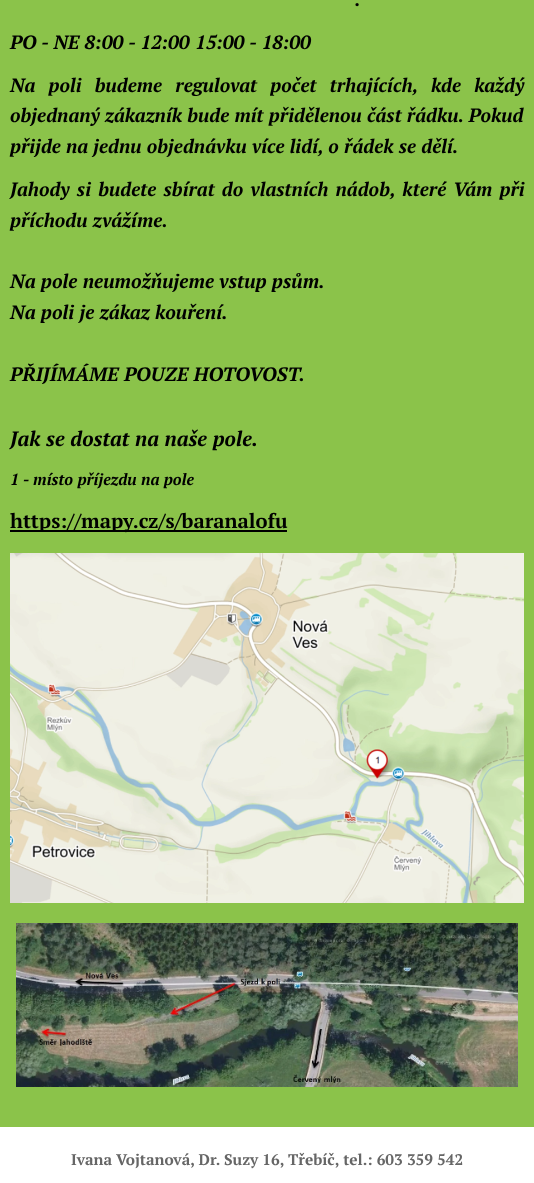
async function draw(canvas) {
  canvas.width = 534;
  canvas.height = 1183;
  const ctx = canvas.getContext('2d');
  ctx.miterLimit = 4;
  ctx.fontKerning = 'normal';
  function label(s, x, y, font, color) {
    ctx.font = font;
    ctx.fillStyle = color;
    ctx.fillText(s, x, y);
  }
  function rect(x, y, w, h, color) {
    ctx.fillStyle = color;
    ctx.fillRect(x, y, w, h);
  }
  async function image(src, x, y, w, h) {
    const img = new Image();
    img.src = src;
    await img.decode();
    ctx.drawImage(img, x, y, w, h);
  }

  rect(0, 0, 534, 1183, '#fff');
  rect(0, 0, 534, 1127, '#8bc34a');
  label('.', 355, 6, 'italic bold 19.2px PT Serif', '#000');
  label('PO - NE 8:00 - 12:00 15:00 - 18:00', 10, 49, 'italic bold 19.2px PT Serif', '#000');
  ctx.wordSpacing = '8px';
  label('Na poli budeme regulovat počet trhajících, kde každý', 10, 92, 'italic bold 19.2px PT Serif', '#000');
  ctx.wordSpacing = '0px';
  label('objednaný zákazník bude mít přidělenou část řádku. Pokud', 10, 122, 'italic bold 19.2px PT Serif', '#000');
  label('přijde na jednu objednávku více lidí, o řádek se dělí.', 10, 153, 'italic bold 19.2px PT Serif', '#000');
  ctx.wordSpacing = '2px';
  label('Jahody si budete sbírat do vlastních nádob, které Vám při', 10, 196, 'italic bold 19.2px PT Serif', '#000');
  ctx.wordSpacing = '0px';
  label('příchodu zvážíme.', 10, 227, 'italic bold 19.2px PT Serif', '#000');
  label('Na pole neumožňujeme vstup psům.', 10, 288, 'italic bold 19.4px PT Serif', '#000');
  label('Na poli je zákaz kouření.', 10, 319, 'italic bold 19.4px PT Serif', '#000');
  label('PŘIJÍMÁME POUZE HOTOVOST.', 10, 381, 'italic bold 19.4px PT Serif', '#000');
  label('Jak se dostat na naše pole.', 10, 446, 'italic bold 20.75px PT Serif', '#000');
  label('1 - místo příjezdu na pole', 10, 485, 'italic bold 16px PT Serif', '#000');
  rect(10, 530, 277, 2, '#000');
  label('https://mapy.cz/s/baranalofu', 10, 528, 'bold 20.2px PT Serif', '#000');
  await image('assets/img1.png', 10, 553, 514, 350);
  await image('assets/img2.png', 16, 923, 502, 164);
  label('Ivana Vojtanová, Dr. Suzy 16, Třebíč, tel.: 603 359 542', 71, 1165, 'bold 15.4px PT Serif', '#666');
}

draw(document.querySelector('canvas'));
